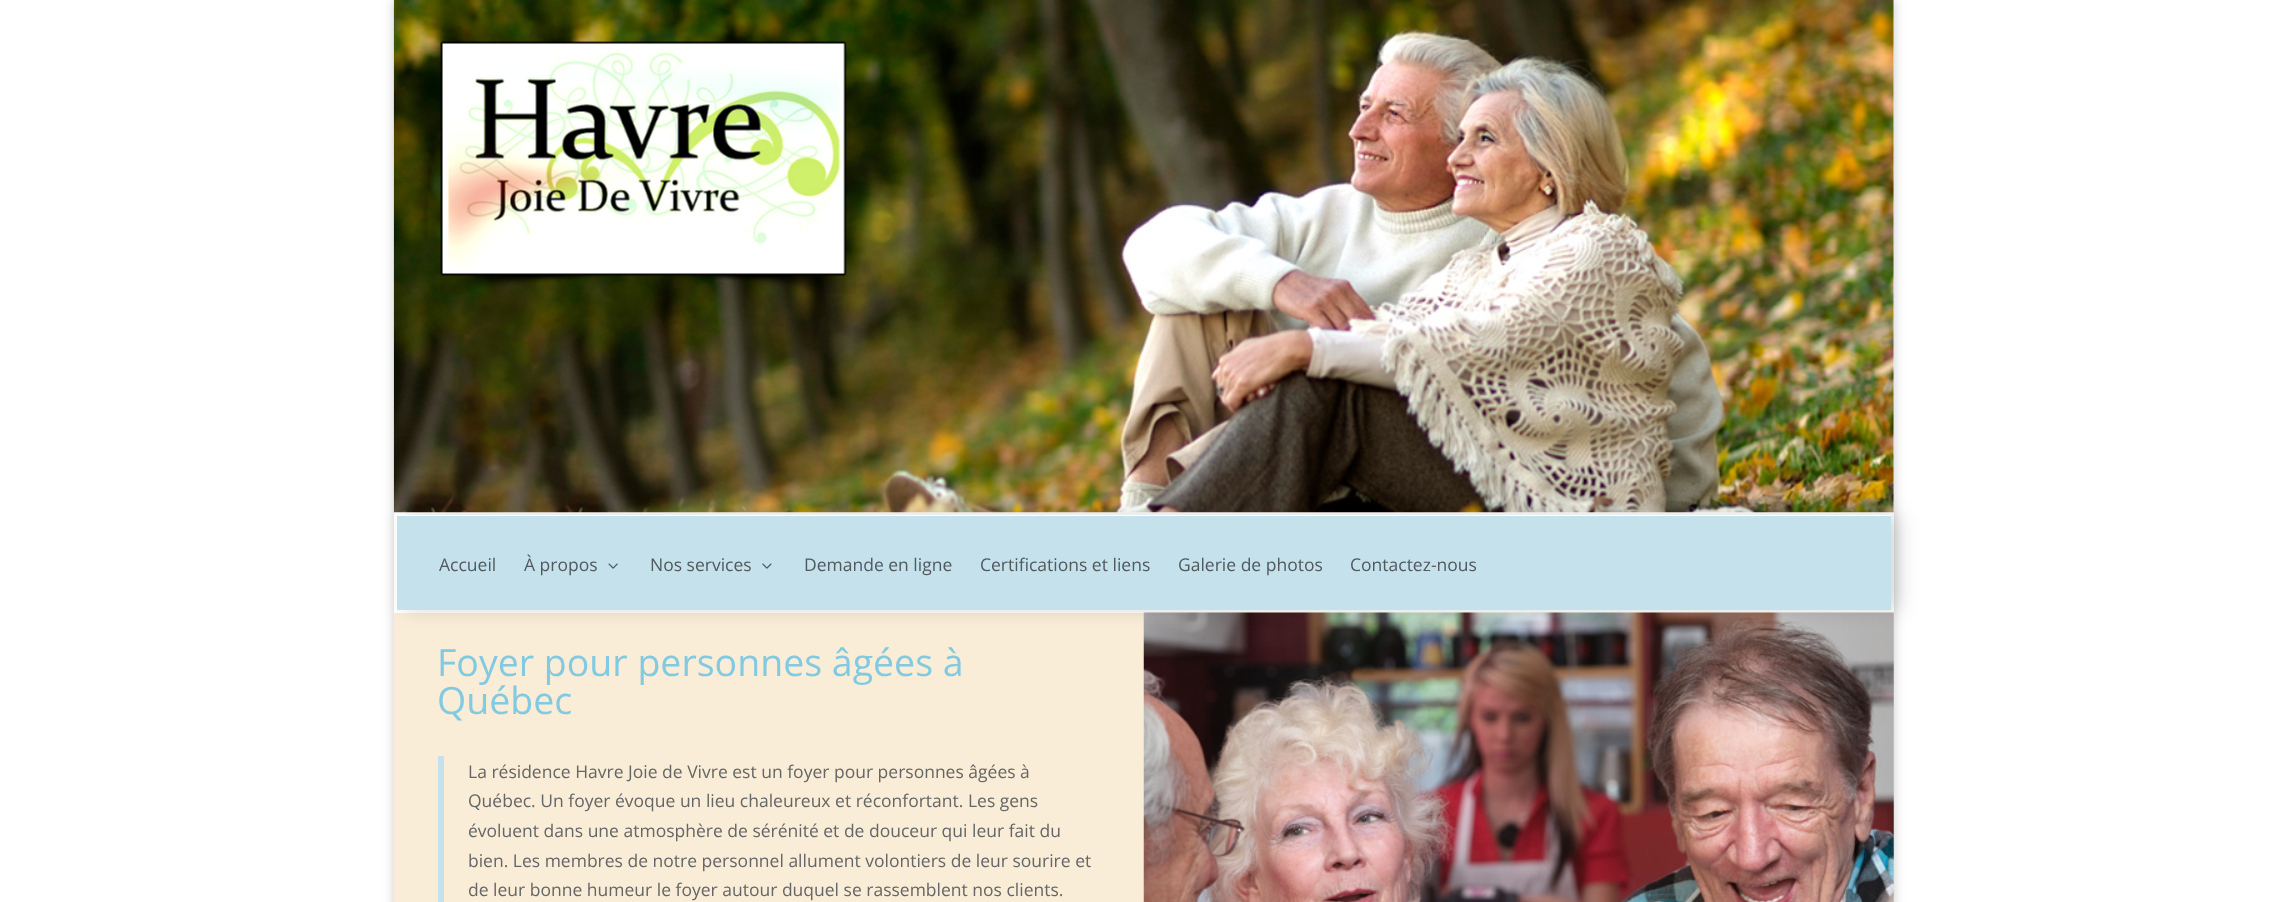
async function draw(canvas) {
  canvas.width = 2286;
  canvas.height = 902;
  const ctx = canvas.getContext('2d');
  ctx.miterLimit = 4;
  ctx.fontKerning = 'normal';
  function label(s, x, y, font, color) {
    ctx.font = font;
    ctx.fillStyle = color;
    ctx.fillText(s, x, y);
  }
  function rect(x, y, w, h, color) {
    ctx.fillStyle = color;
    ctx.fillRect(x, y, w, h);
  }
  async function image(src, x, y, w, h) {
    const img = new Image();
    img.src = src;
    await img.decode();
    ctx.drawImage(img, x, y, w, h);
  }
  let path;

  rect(0, 0, 2286, 902, '#fff');
  ctx.fillStyle = '#00000033';
  ctx.filter = 'blur(6px)';
  ctx.beginPath();
  ctx.rect(394, 0, 1500, 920);
  ctx.fill();
  ctx.filter = 'none';
  rect(394, 0, 1500, 513, '#fff');
  await image('assets/img2.png', 393, 0, 1501, 513);
  await image('assets/img1.png', 440, 41, 416, 253);
  ctx.fillStyle = '#c5e2ec';
  ctx.beginPath();
  ctx.rect(395.5, 514.5, 1497, 97);
  ctx.fill();
  ctx.strokeStyle = '#fff';
  ctx.lineWidth = 3;
  ctx.stroke();
  rect(394, 613, 750, 289, '#f9edd7');
  await image('assets/img5.png', 1143, 612, 751, 290);
  ctx.save();
  path = new Path2D('M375 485H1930V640H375ZM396 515H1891V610H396Z');
  ctx.clip(path, 'evenodd');
  ctx.fillStyle = '#00000026';
  ctx.filter = 'blur(9.5px)';
  ctx.beginPath();
  ctx.rect(405, 515, 1495, 95);
  ctx.fill();
  ctx.filter = 'none';
  ctx.restore();
  label('Accueil', 439, 571, '17.5px Open Sans', '#4f5a5e');
  label('À propos', 524, 571, '17.5px Open Sans', '#4f5a5e');
  await image('assets/img3.png', 608, 563, 10, 6);
  label('Nos services', 650, 571, '17.5px Open Sans', '#4f5a5e');
  await image('assets/img4.png', 762, 563, 10, 6);
  label('Demande en ligne', 804, 571, '17.5px Open Sans', '#4f5a5e');
  label('Certifications et liens', 980, 571, '17.5px Open Sans', '#4f5a5e');
  label('Galerie de photos', 1178, 571, '17.5px Open Sans', '#4f5a5e');
  label('Contactez-nous', 1350, 571, '17.5px Open Sans', '#4f5a5e');
  label('Foyer pour personnes âgées à', 437, 676, '37.5px Open Sans', '#82c9e2');
  label('Québec', 437, 714, '37.5px Open Sans', '#82c9e2');
  rect(438, 756, 6, 146, '#c5e2ec');
  label('La résidence Havre Joie de Vivre est un foyer pour personnes âgées à', 468, 778, '17.5px Open Sans', '#666');
  label('Québec. Un foyer évoque un lieu chaleureux et réconfortant. Les gens', 468, 807, '17.5px Open Sans', '#666');
  label('évoluent dans une atmosphère de sérénité et de douceur qui leur fait du', 468, 837, '17.5px Open Sans', '#666');
  label('bien. Les membres de notre personnel allument volontiers de leur sourire et', 468, 867, '17.5px Open Sans', '#666');
  label('de leur bonne humeur le foyer autour duquel se rassemblent nos clients.', 468, 896, '17.5px Open Sans', '#666');
}

draw(document.querySelector('canvas'));
